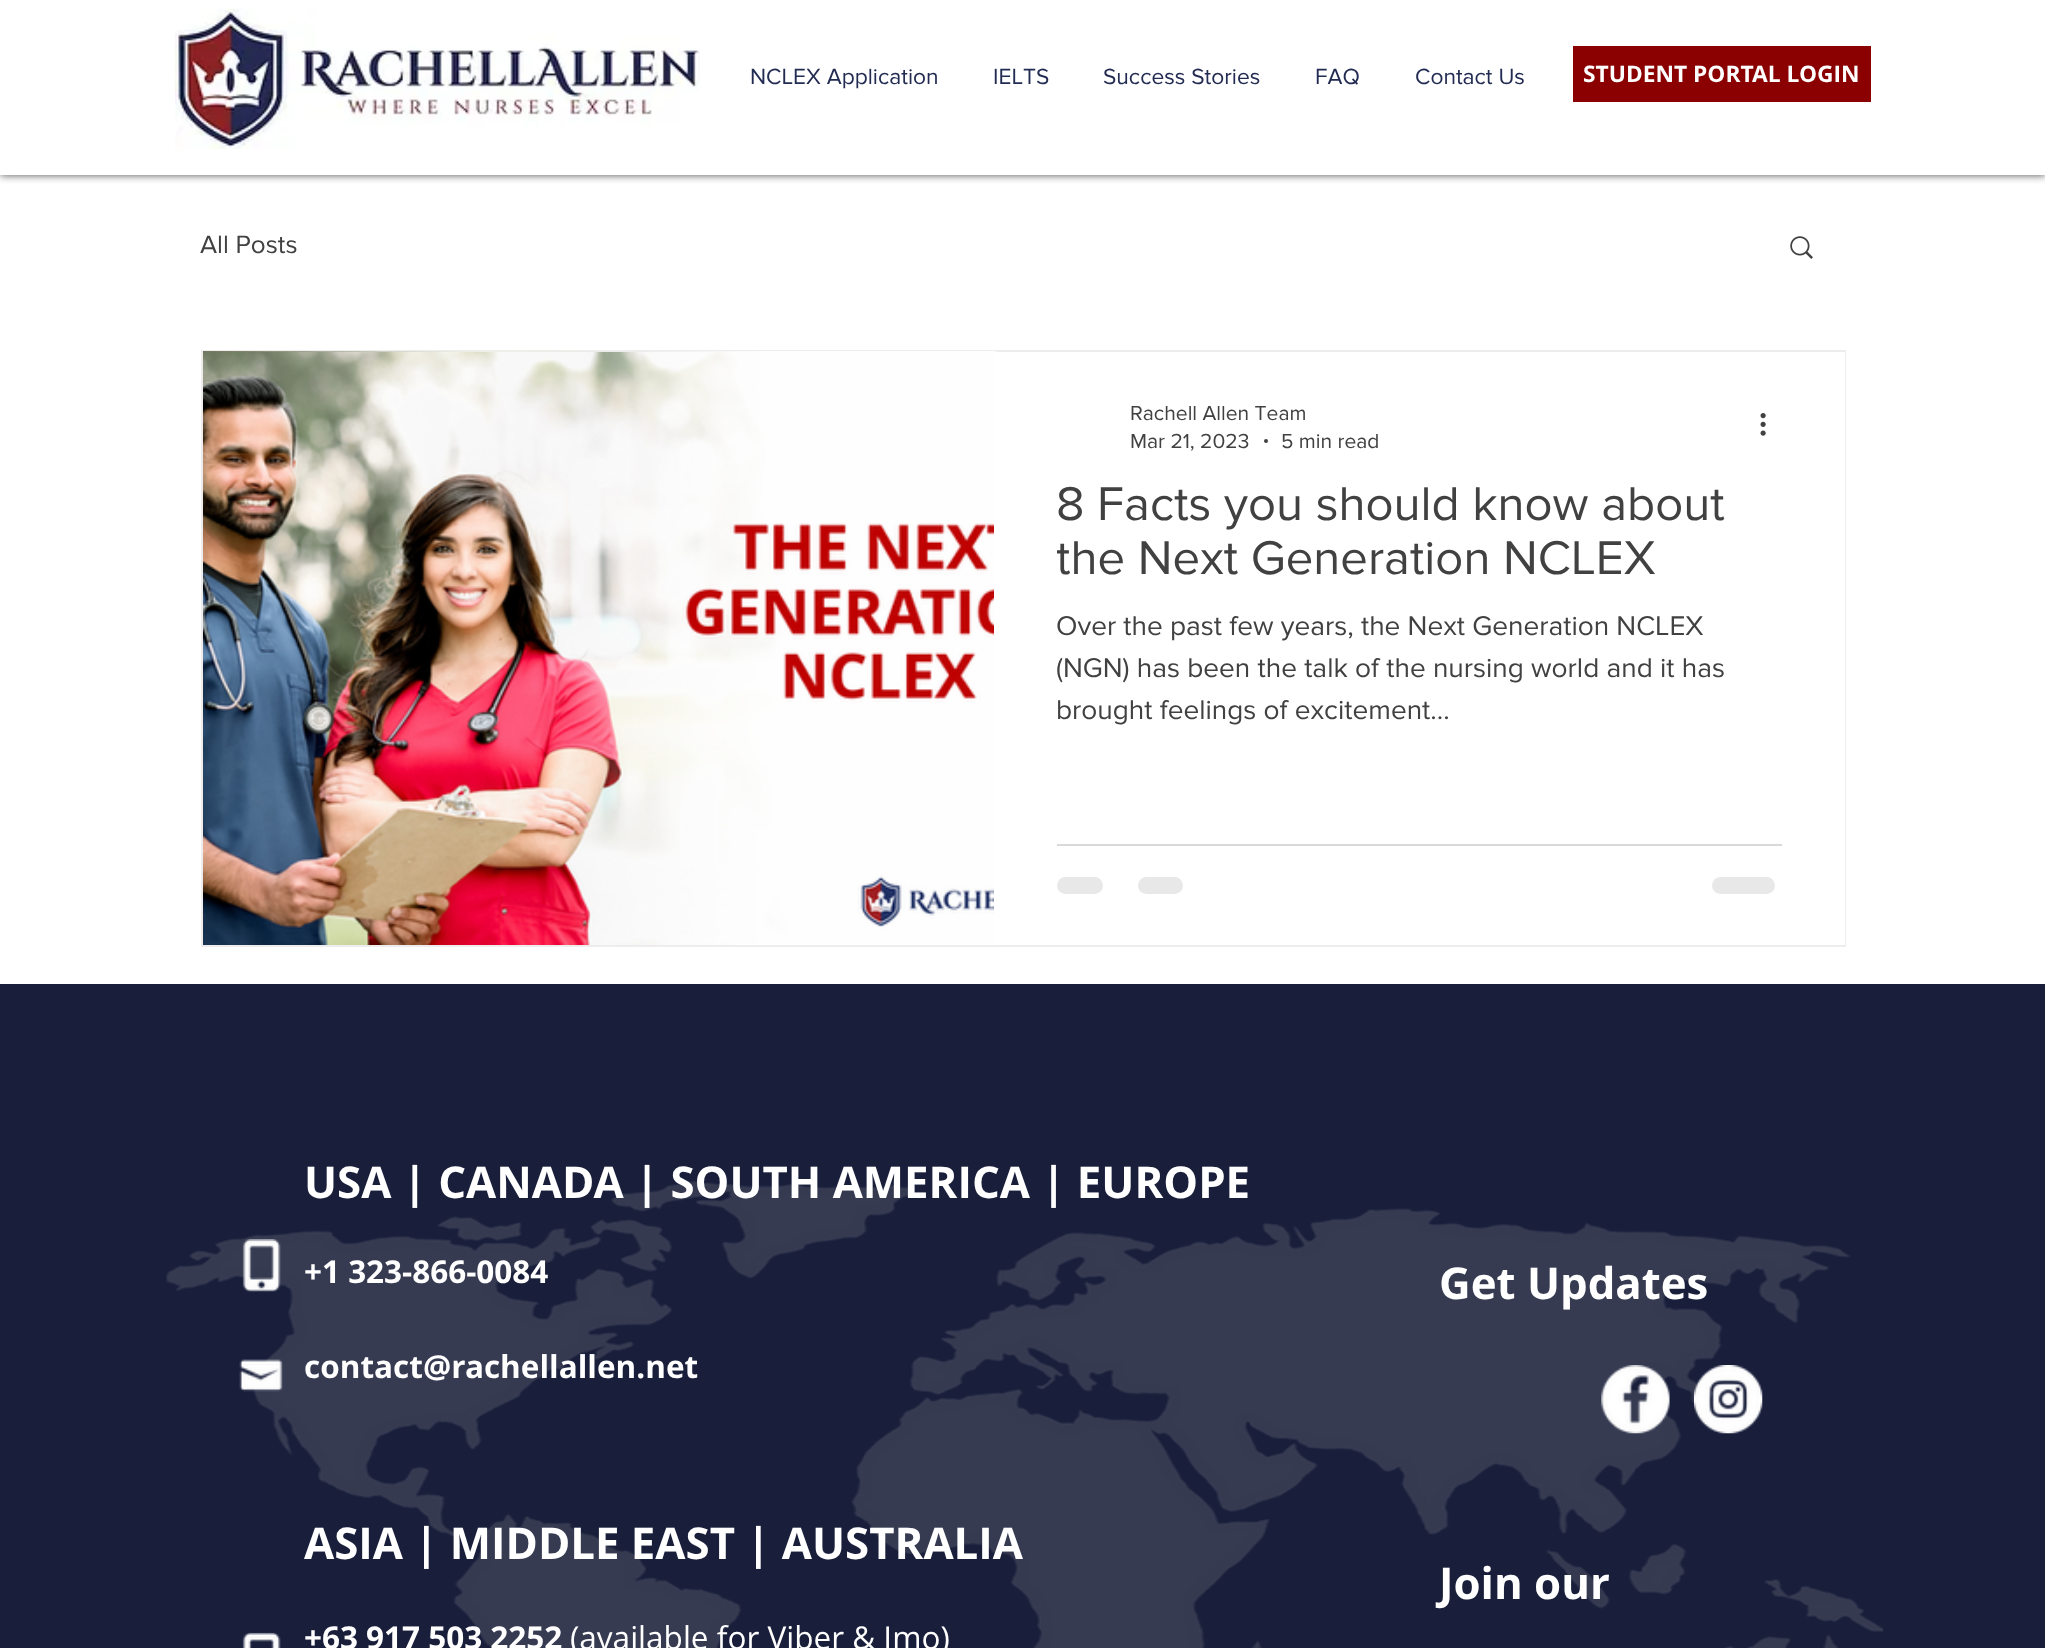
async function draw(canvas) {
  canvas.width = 2045;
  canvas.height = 1648;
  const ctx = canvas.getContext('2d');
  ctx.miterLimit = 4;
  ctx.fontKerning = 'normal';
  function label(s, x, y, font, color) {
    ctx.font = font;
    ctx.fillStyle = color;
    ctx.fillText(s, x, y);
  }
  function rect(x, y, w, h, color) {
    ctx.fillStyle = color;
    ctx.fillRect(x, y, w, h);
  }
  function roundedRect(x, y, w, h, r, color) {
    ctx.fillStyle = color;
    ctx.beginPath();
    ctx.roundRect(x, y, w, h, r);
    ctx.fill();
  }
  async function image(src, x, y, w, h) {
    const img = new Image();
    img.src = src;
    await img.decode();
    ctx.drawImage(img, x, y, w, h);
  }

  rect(0, 0, 2045, 1648, '#fff');
  ctx.save();
  ctx.beginPath();
  ctx.rect(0, 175, 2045, 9);
  ctx.clip();
  ctx.fillStyle = '#000000b3';
  ctx.filter = 'blur(4.5px)';
  ctx.beginPath();
  ctx.rect(0, 0, 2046, 175);
  ctx.fill();
  ctx.filter = 'none';
  ctx.restore();
  await image('assets/img1.png', 175, 8, 525, 141);
  label('NCLEX Application', 750, 84, '22.75px "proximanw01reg"', '#222b52');
  label('IELTS', 993, 84, '22.75px "proximanw01reg"', '#222b52');
  label('Success Stories', 1103, 84, '22.75px "proximanw01reg"', '#222b52');
  label('FAQ', 1315, 84, '22.75px "proximanw01reg"', '#222b52');
  label('Contact Us', 1415, 84, '22.75px "proximanw01reg"', '#222b52');
  rect(1573, 46, 298, 56, '#8b0000');
  label('STUDENT PORTAL LOGIN', 1583, 82, 'bold 22.75px Open Sans', '#fff');
  label('All Posts', 200, 253, '26px "proximanw01reg"', '#414141');
  await image('assets/img2.png', 1790, 236, 23, 23);
  ctx.strokeStyle = '#eeecec';
  ctx.lineWidth = 2;
  ctx.strokeRect(202, 351, 1643, 595);
  await image('assets/img3.png', 203, 351, 793, 1);
  await image('assets/img4.png', 203, 352, 791, 593);
  rect(1844, 352, 1, 593, '#fff');
  label('Rachell Allen Team', 1130, 420, '21px "proximanw01reg"', '#414141');
  label('Mar 21, 2023', 1130, 448, '21px "proximanw01reg"', '#414141');
  ctx.beginPath();
  ctx.arc(1266, 441, 2, 0, 2 * Math.PI);
  ctx.fill();
  label('5 min read', 1281, 448, '21px "proximanw01reg"', '#414141');
  await image('assets/img5.png', 1760, 413, 6, 23);
  label('8 Facts you should know about', 1056, 520, '49px "proximanw01reg"', '#414141');
  ctx.save();
  ctx.beginPath();
  ctx.rect(1057, 476, 725, 109);
  ctx.clip();
  label('the Next Generation NCLEX', 1056, 574, '49px "proximanw01reg"', '#414141');
  ctx.restore();
  label('Over the past few years, the Next Generation NCLEX', 1056, 635, '28px "proximanw01reg"', '#414141');
  label('(NGN) has been the talk of the nursing world and it has', 1056, 677, '28px "proximanw01reg"', '#414141');
  label('brought feelings of excitement...', 1056, 719, '28px "proximanw01reg"', '#414141');
  rect(1057, 844, 725, 2, '#d9d9d9');
  roundedRect(1057, 877, 46, 17, 8.5, '#e8e8e8');
  roundedRect(1138, 877, 45, 17, 8.5, '#e8e8e8');
  roundedRect(1712, 877, 63, 17, 8.5, '#e8e8e8');
  rect(0, 984, 2045, 664, '#191f3b');
  await image('assets/img9.png', 166, 1181, 1717, 467);
  await image('assets/img6.png', 242, 1239, 39, 53);
  label('USA | CANADA | SOUTH AMERICA | EUROPE', 304, 1198, 'bold 43.75px Open Sans', '#fff');
  label('+1 323-866-0084', 304, 1283, 'bold 31.5px Open Sans', '#fff');
  label('contact@rachellallen.net', 304, 1378, 'bold 31.5px Open Sans', '#fff');
  label('ASIA | MIDDLE EAST | AUSTRALIA', 304, 1559, 'bold 43.75px Open Sans', '#fff');
  label('+63 917 503 2252', 304, 1649, 'bold 31.5px Open Sans', '#fff');
  label('(available for Viber & Imo)', 570, 1649, '31.5px Open Sans', '#fff');
  await image('assets/img7.png', 239, 1359, 44, 33);
  await image('assets/img8.png', 242, 1632, 39, 16);
  label('Get Updates', 1439, 1299, 'bold 43.75px Open Sans', '#fff');
  await image('assets/img10.png', 1601, 1365, 69, 69);
  await image('assets/img11.png', 1694, 1365, 69, 69);
  label('Join our', 1439, 1599, 'bold 43.75px Open Sans', '#fff');
}

draw(document.querySelector('canvas'));
